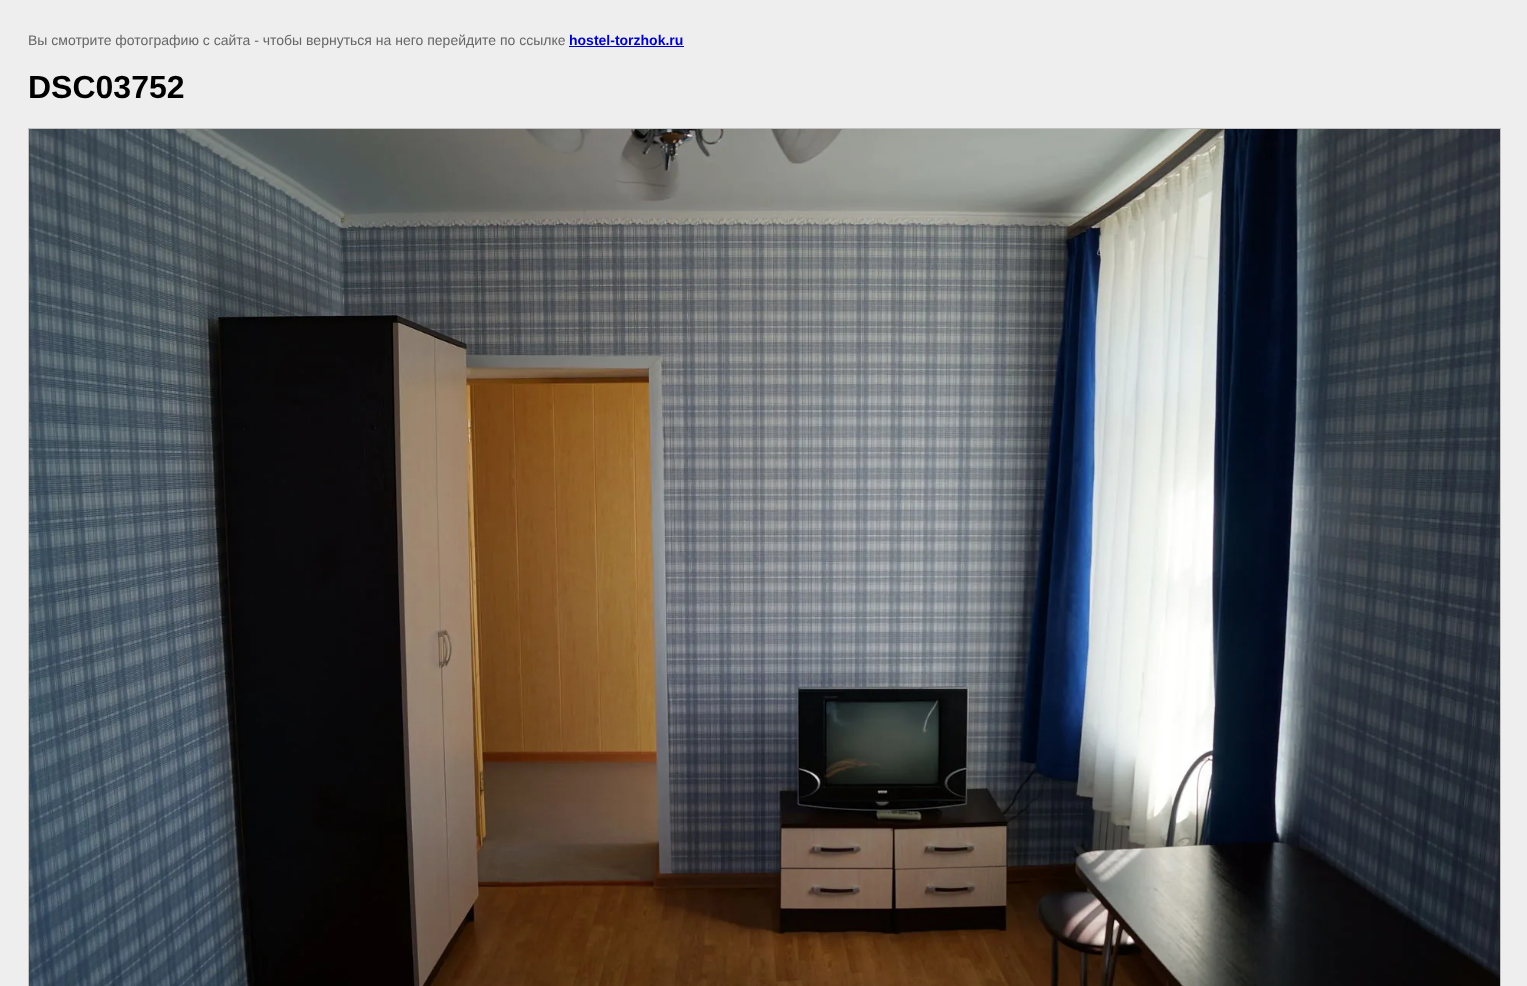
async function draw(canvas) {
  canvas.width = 1527;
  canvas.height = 986;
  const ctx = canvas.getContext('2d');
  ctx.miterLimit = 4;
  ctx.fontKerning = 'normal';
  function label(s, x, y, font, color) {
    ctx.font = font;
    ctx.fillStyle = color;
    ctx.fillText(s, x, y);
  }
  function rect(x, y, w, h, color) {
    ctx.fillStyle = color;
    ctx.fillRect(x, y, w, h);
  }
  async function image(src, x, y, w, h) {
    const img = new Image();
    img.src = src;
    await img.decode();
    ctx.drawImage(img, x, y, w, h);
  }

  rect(0, 0, 1527, 986, '#eee');
  label('Вы смотрите фотографию с сайта - чтобы вернуться на него перейдите по ссылке', 28, 45, '14px Liberation Sans', '#666');
  label('hostel-torzhok.ru', 569, 45, 'bold 14px Liberation Sans', '#00c');
  rect(569, 46, 115, 1, '#00c');
  label('DSC03752', 28, 98, 'bold 32px Liberation Sans', '#000');
  ctx.strokeStyle = '#c0c0c0';
  ctx.strokeRect(28.5, 128.5, 1472, 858);
  await image('assets/img1.png', 29, 129, 1471, 857);
}

draw(document.querySelector('canvas'));
